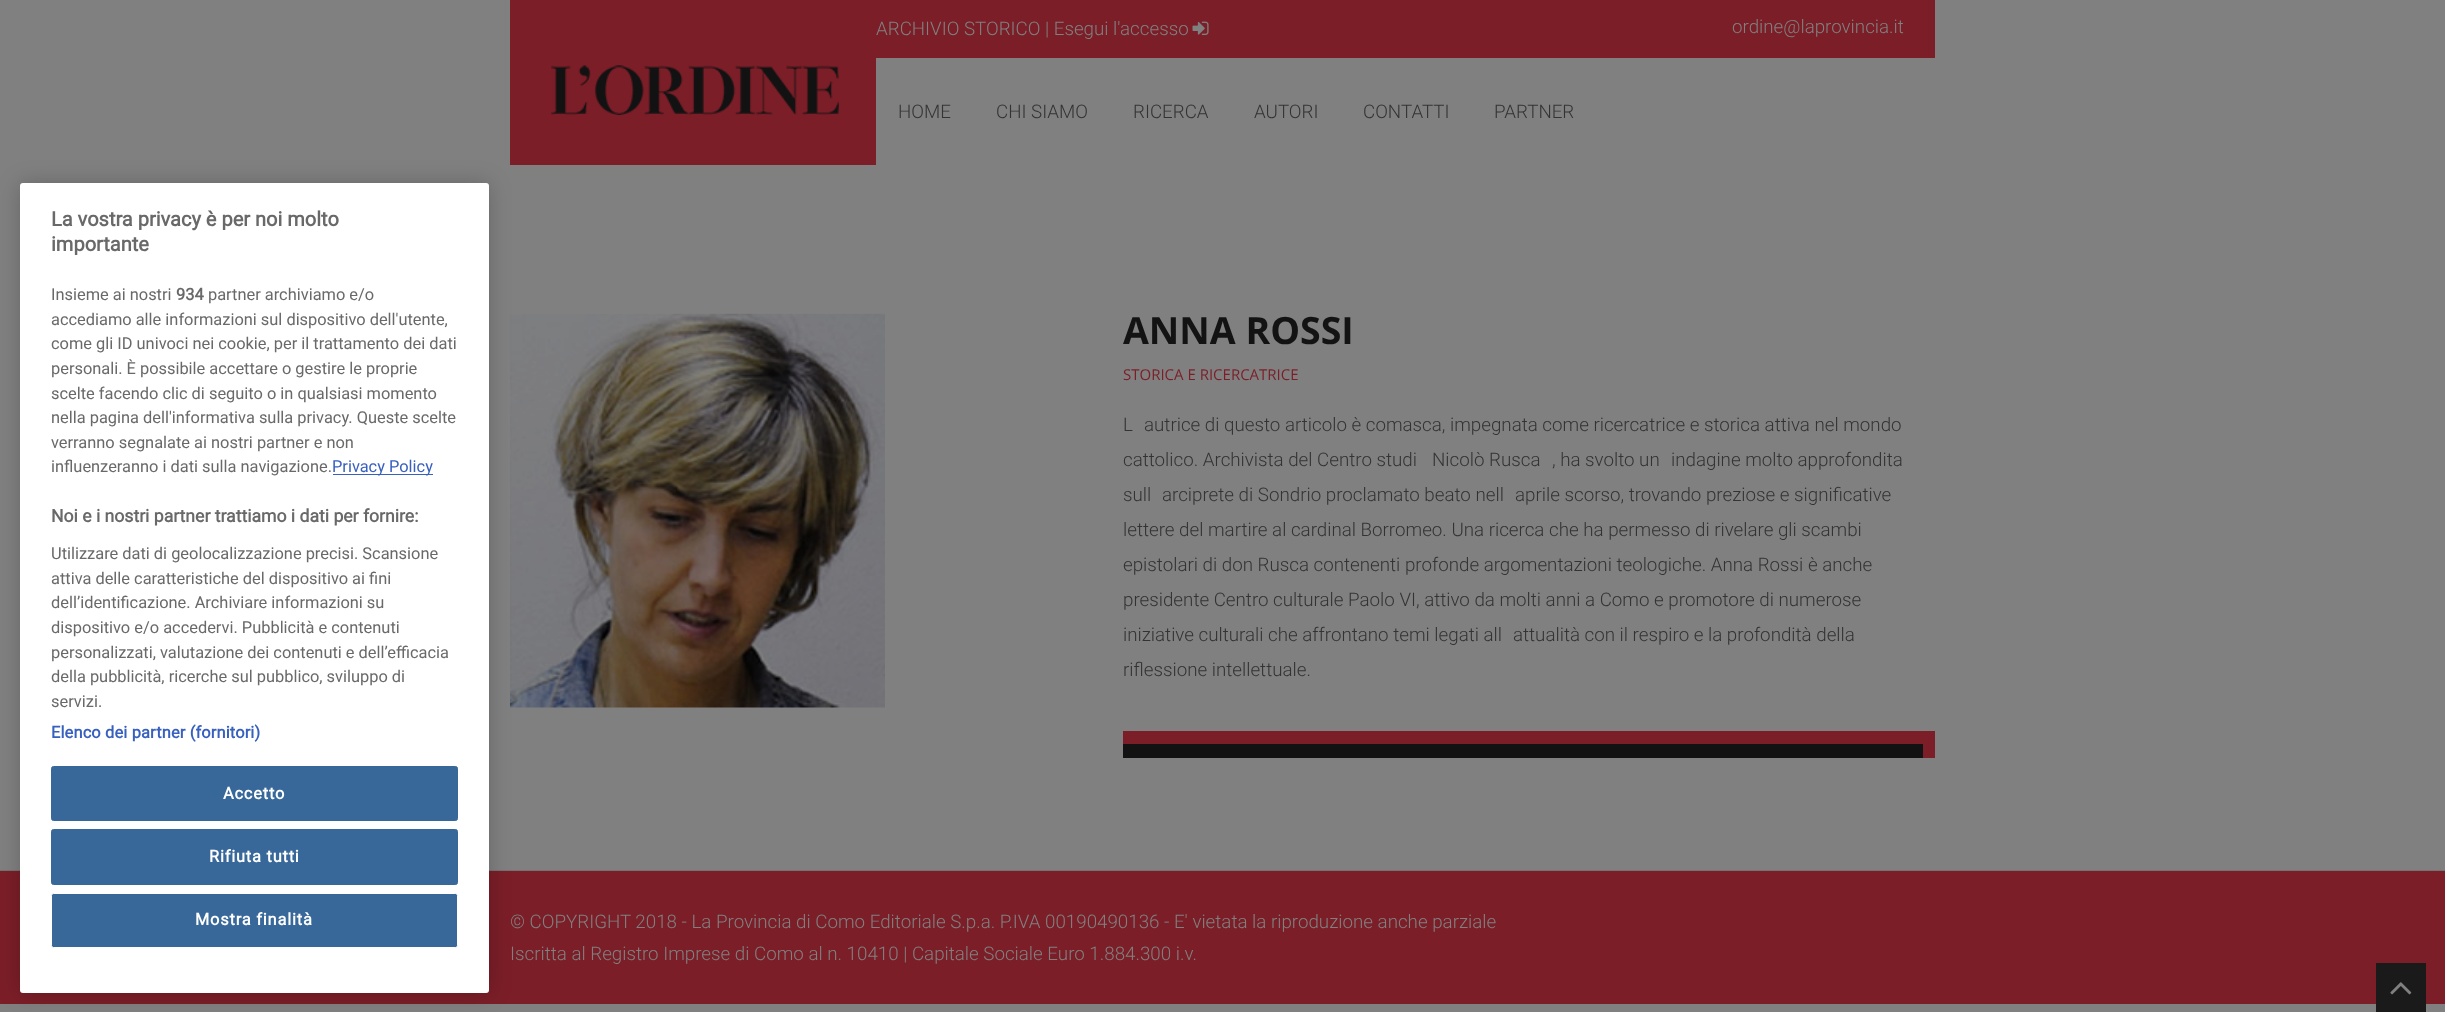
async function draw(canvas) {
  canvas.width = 2445;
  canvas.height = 1012;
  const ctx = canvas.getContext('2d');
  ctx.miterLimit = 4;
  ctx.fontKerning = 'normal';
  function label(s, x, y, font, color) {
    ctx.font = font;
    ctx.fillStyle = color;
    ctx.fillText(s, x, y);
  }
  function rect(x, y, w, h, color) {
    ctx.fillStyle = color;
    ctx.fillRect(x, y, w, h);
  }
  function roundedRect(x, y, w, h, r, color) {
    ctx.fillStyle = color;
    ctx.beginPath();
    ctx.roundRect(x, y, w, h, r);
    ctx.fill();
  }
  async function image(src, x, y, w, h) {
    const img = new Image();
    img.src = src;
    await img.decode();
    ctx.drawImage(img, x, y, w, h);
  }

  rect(0, 0, 2445, 1012, '#808080');
  rect(510, 0, 1425, 165, '#7b1e28');
  rect(0, 870, 2445, 1, '#737373');
  await image('assets/img3.png', 510, 313, 375, 395);
  rect(0, 871, 2445, 133, '#7b1e28');
  ctx.fillStyle = '#00000033';
  ctx.filter = 'blur(11px)';
  ctx.beginPath();
  ctx.roundRect(20, 183, 469, 810, 3);
  ctx.fill();
  ctx.filter = 'none';
  roundedRect(20, 183, 469, 810, 3, '#fff');
  label('La vostra privacy è per noi molto', 51, 226, 'bold 20px Roboto', '#696969');
  label('importante', 51, 251, 'bold 20px Roboto', '#696969');
  label('Insieme ai nostri', 51, 300, '16.4px Roboto', '#696969');
  label('934', 176, 300, 'bold 16.4px Roboto', '#696969');
  label('partner archiviamo e/o', 208, 300, '16.4px Roboto', '#696969');
  label('accediamo alle informazioni sul dispositivo dell\'utente,', 51, 325, '16.4px Roboto', '#696969');
  label('come gli ID univoci nei cookie, per il trattamento dei dati', 51, 349, '16.4px Roboto', '#696969');
  label('personali. È possibile accettare o gestire le proprie', 51, 374, '16.4px Roboto', '#696969');
  label('scelte facendo clic di seguito o in qualsiasi momento', 51, 399, '16.4px Roboto', '#696969');
  label('nella pagina dell\'informativa sulla privacy. Queste scelte', 51, 423, '16.4px Roboto', '#696969');
  label('verranno segnalate ai nostri partner e non', 51, 448, '16.4px Roboto', '#696969');
  label('influenzeranno i dati sulla navigazione.', 51, 472, '16.4px Roboto', '#696969');
  rect(333, 474, 100, 1, '#3860be');
  label('Privacy Policy', 332, 472, '16.4px Roboto', '#3860be');
  label('Noi e i nostri partner trattiamo i dati per fornire:', 51, 522, 'bold 17.6px Roboto', '#696969');
  label('Utilizzare dati di geolocalizzazione precisi. Scansione', 51, 559, '16.4px Roboto', '#696969');
  label('attiva delle caratteristiche del dispositivo ai fini', 51, 584, '16.4px Roboto', '#696969');
  label('dell’identificazione. Archiviare informazioni su', 51, 608, '16.4px Roboto', '#696969');
  label('dispositivo e/o accedervi. Pubblicità e contenuti', 51, 633, '16.4px Roboto', '#696969');
  label('personalizzati, valutazione dei contenuti e dell’efficacia', 51, 658, '16.4px Roboto', '#696969');
  label('della pubblicità, ricerche sul pubblico, sviluppo di', 51, 682, '16.4px Roboto', '#696969');
  label('servizi.', 51, 707, '16.4px Roboto', '#696969');
  ctx.letterSpacing = '0.15px';
  label('Elenco dei partner (fornitori)', 51, 738, 'bold 16.4px Roboto', '#3860be');
  ctx.fillStyle = '#38689a';
  ctx.beginPath();
  ctx.roundRect(51.5, 766.5, 406, 54, 2);
  ctx.fill();
  ctx.strokeStyle = '#38689a';
  ctx.stroke();
  ctx.letterSpacing = '0.8px';
  label('Accetto', 223, 799, 'bold 16.4px Roboto', '#fff');
  ctx.fillStyle = '#38689a';
  ctx.beginPath();
  ctx.roundRect(51.5, 829.5, 406, 55, 2);
  ctx.fill();
  ctx.stroke();
  label('Rifiuta tutti', 209, 862, 'bold 16.4px Roboto', '#fff');
  ctx.fillStyle = '#38689a';
  ctx.beginPath();
  ctx.roundRect(51.5, 893.5, 406, 54, 2);
  ctx.fill();
  ctx.strokeStyle = '#fff';
  ctx.stroke();
  label('Mostra finalità', 195, 925, 'bold 16.4px Roboto', '#fff');
  await image('assets/img1.png', 551, 65, 288, 50);
  ctx.letterSpacing = '0px';
  label('ARCHIVIO STORICO | Esegui l\'accesso', 876, 35, '300 18.75px Roboto', '#808080');
  await image('assets/img2.png', 1192, 21, 17, 14);
  label('ordine@laprovincia.it', 1732, 33, '300 18.75px Roboto', '#808080');
  rect(876, 58, 1059, 107, '#808080');
  label('HOME', 898, 118, '300 18.75px Roboto', '#333');
  label('CHI SIAMO', 996, 118, '300 18.75px Roboto', '#333');
  label('RICERCA', 1133, 118, '300 18.75px Roboto', '#333');
  label('AUTORI', 1254, 118, '300 18.75px Roboto', '#333');
  label('CONTATTI', 1363, 118, '300 18.75px Roboto', '#333');
  label('PARTNER', 1494, 118, '300 18.75px Roboto', '#333');
  label('ANNA ROSSI', 1123, 344, 'bold 37.5px Open Sans', '#131313');
  label('STORICA E RICERCATRICE', 1123, 380, '15px Open Sans', '#7b1e28');
  label('L', 1123, 431, '300 18.75px Roboto', '#333');
  label('autrice di questo articolo è comasca, impegnata come ricercatrice e storica attiva nel mondo', 1144, 431, '300 18.75px Roboto', '#333');
  label('cattolico. Archivista del Centro studi', 1123, 466, '300 18.75px Roboto', '#333');
  label('Nicolò Rusca', 1432, 466, '300 18.75px Roboto', '#333');
  label(', ha svolto un', 1552, 466, '300 18.75px Roboto', '#333');
  label('indagine molto approfondita', 1671, 466, '300 18.75px Roboto', '#333');
  label('sull', 1123, 501, '300 18.75px Roboto', '#333');
  label('arciprete di Sondrio proclamato beato nell', 1162, 501, '300 18.75px Roboto', '#333');
  label('aprile scorso, trovando preziose e significative', 1515, 501, '300 18.75px Roboto', '#333');
  label('lettere del martire al cardinal Borromeo. Una ricerca che ha permesso di rivelare gli scambi', 1123, 536, '300 18.75px Roboto', '#333');
  label('epistolari di don Rusca contenenti profonde argomentazioni teologiche. Anna Rossi è anche', 1123, 571, '300 18.75px Roboto', '#333');
  label('presidente Centro culturale Paolo VI, attivo da molti anni a Como e promotore di numerose', 1123, 606, '300 18.75px Roboto', '#333');
  label('iniziative culturali che affrontano temi legati all', 1123, 641, '300 18.75px Roboto', '#333');
  label('attualità con il respiro e la profondità della', 1513, 641, '300 18.75px Roboto', '#333');
  label('riflessione intellettuale.', 1123, 676, '300 18.75px Roboto', '#333');
  rect(1123, 744, 800, 14, '#121212');
  rect(1123, 731, 800, 13, '#7b1e28');
  rect(1923, 731, 12, 27, '#7b1e28');
  label('© COPYRIGHT 2018 - La Provincia di Como Editoriale S.p.a. P.IVA 00190490136 - E\' vietata la riproduzione anche parziale', 510, 928, '300 18.75px Roboto', '#808080');
  label('Iscritta al Registro Imprese di Como al n. 10410 | Capitale Sociale Euro 1.884.300 i.v.', 510, 960, '300 18.75px Roboto', '#808080');
  rect(2376, 963, 50, 49, '#1a1a1a');
  await image('assets/img4.png', 2390, 982, 22, 13);
}

draw(document.querySelector('canvas'));
